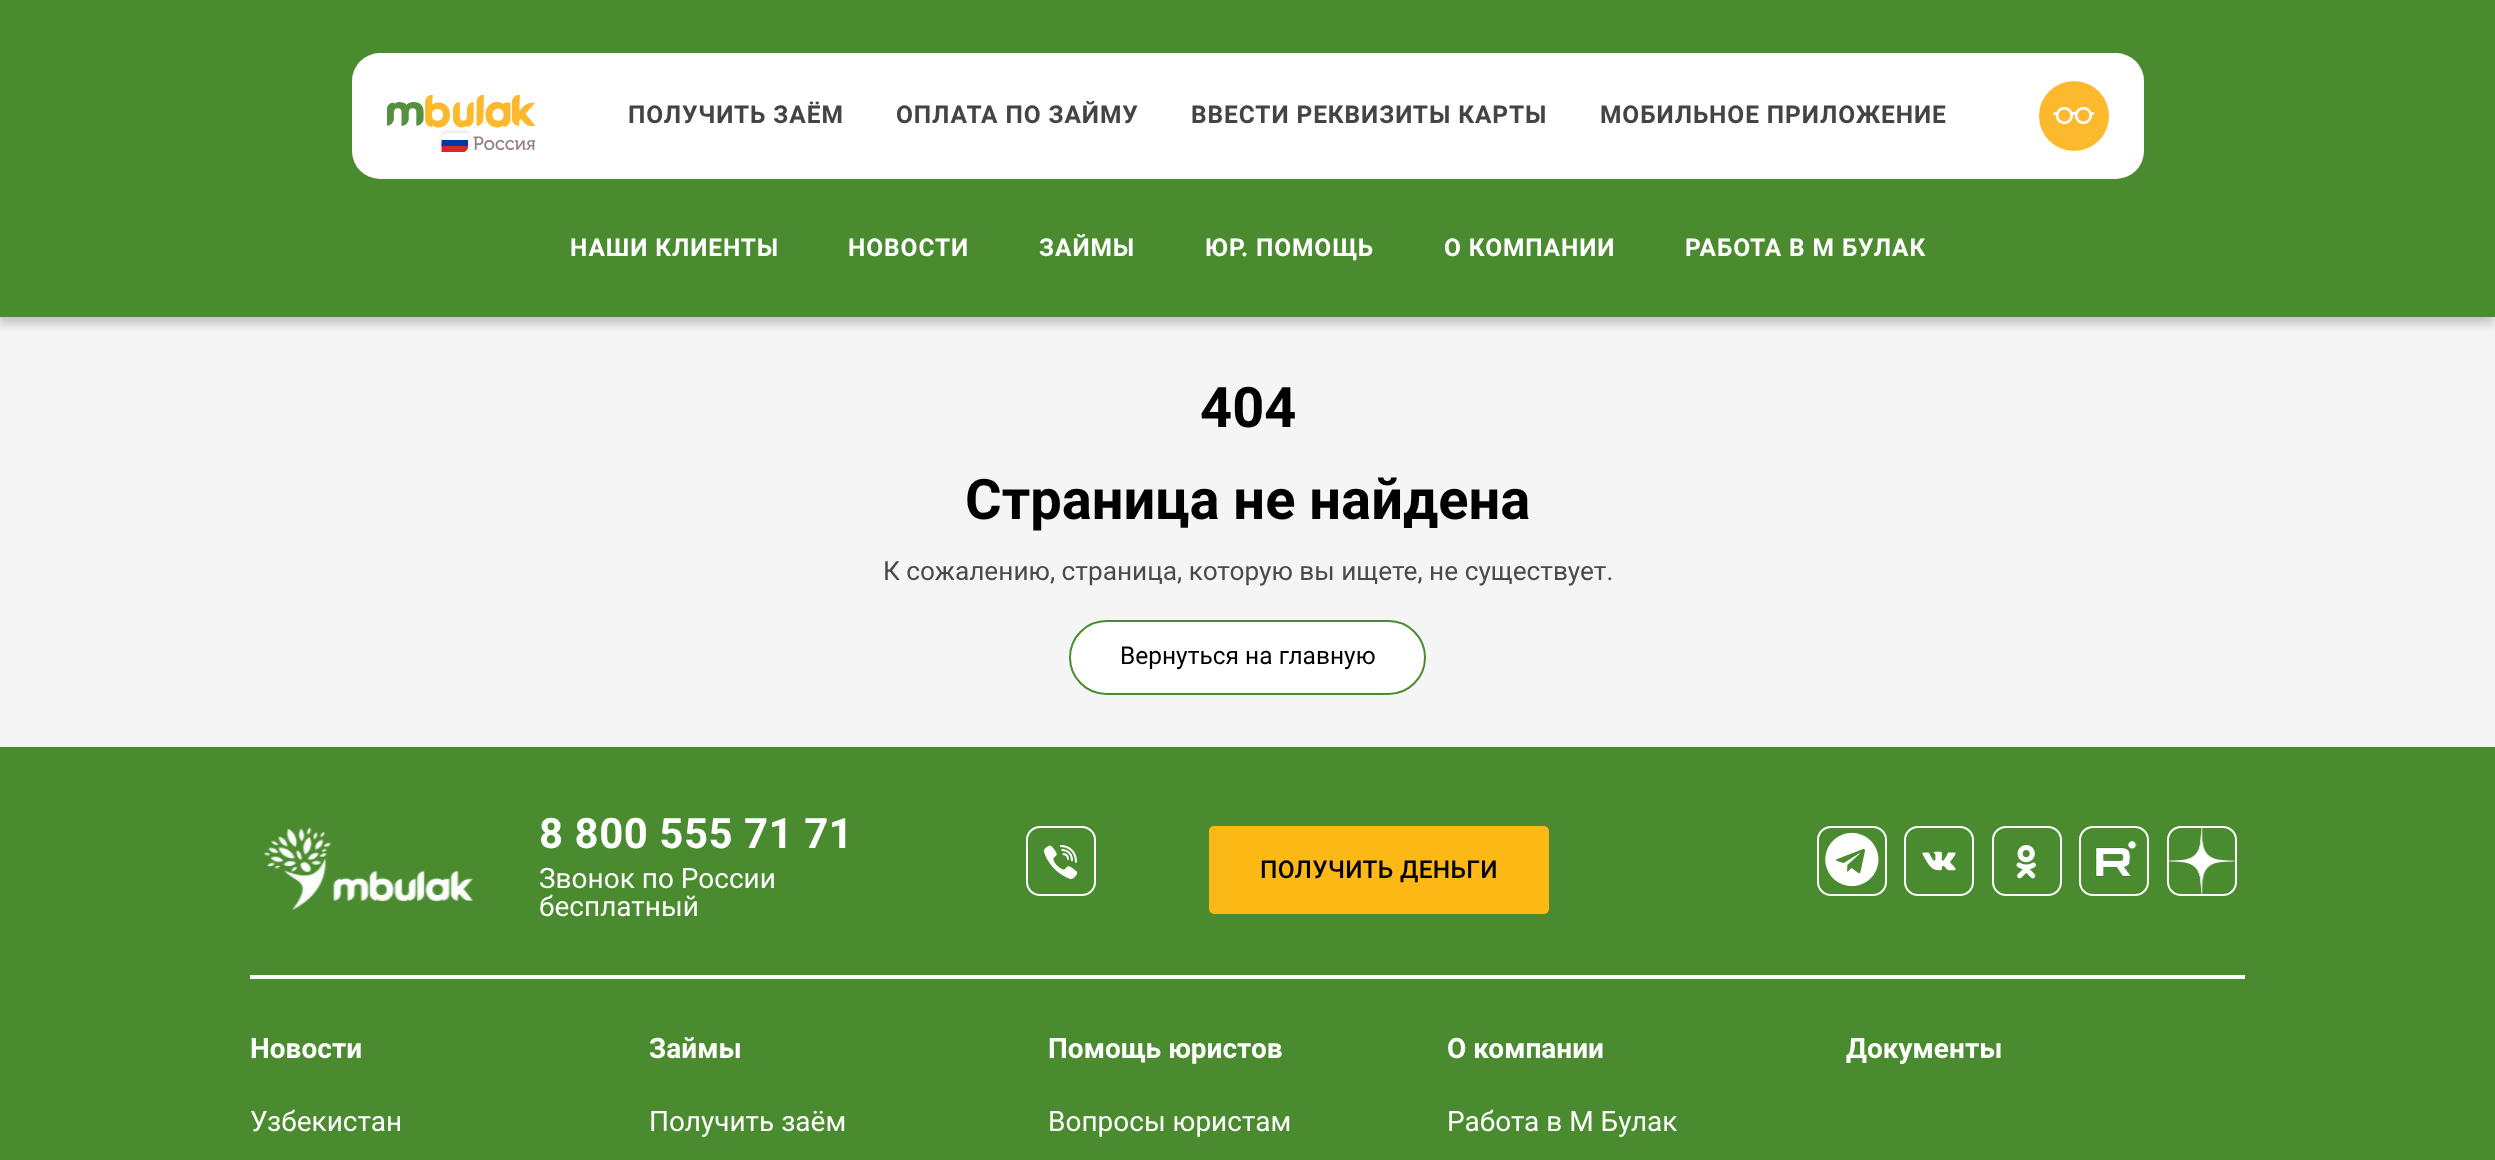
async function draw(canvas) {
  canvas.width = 2495;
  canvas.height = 1160;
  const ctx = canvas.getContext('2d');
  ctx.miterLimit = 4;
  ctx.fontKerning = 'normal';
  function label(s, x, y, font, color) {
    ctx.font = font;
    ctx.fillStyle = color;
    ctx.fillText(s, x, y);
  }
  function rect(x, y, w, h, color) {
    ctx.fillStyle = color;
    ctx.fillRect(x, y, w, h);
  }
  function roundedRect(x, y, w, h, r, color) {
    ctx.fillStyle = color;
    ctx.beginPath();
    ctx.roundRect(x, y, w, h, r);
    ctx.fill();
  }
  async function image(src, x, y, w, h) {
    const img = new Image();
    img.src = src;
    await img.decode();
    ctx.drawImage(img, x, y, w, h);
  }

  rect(0, 0, 2495, 1160, '#f5f5f5');
  ctx.fillStyle = '#00000033';
  ctx.filter = 'blur(5px)';
  ctx.beginPath();
  ctx.rect(-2, 7, 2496, 317);
  ctx.fill();
  ctx.filter = 'none';
  rect(0, 0, 2495, 317, '#4a8b2f');
  roundedRect(352, 53, 1792, 126, 28, '#fff');
  await image('assets/img1.png', 387, 95, 149, 57);
  ctx.letterSpacing = '0.9px';
  label('ПОЛУЧИТЬ ЗАЁМ', 628, 123, 'bold 24.5px Roboto', '#444');
  label('ОПЛАТА ПО ЗАЙМУ', 896, 123, 'bold 24.5px Roboto', '#444');
  label('ВВЕСТИ РЕКВИЗИТЫ КАРТЫ', 1191, 123, 'bold 24.5px Roboto', '#444');
  label('МОБИЛЬНОЕ ПРИЛОЖЕНИЕ', 1600, 123, 'bold 24.5px Roboto', '#444');
  ctx.fillStyle = '#fdb92e';
  ctx.beginPath();
  ctx.arc(2074, 116, 35, 0, 2 * Math.PI);
  ctx.fill();
  await image('assets/img2.png', 2053, 106, 42, 19);
  label('НАШИ КЛИЕНТЫ', 570, 256, 'bold 24.5px Roboto', '#fff');
  label('НОВОСТИ', 848, 256, 'bold 24.5px Roboto', '#fff');
  label('ЗАЙМЫ', 1039, 256, 'bold 24.5px Roboto', '#fff');
  label('ЮР. ПОМОЩЬ', 1205, 256, 'bold 24.5px Roboto', '#fff');
  label('О КОМПАНИИ', 1444, 256, 'bold 24.5px Roboto', '#fff');
  label('РАБОТА В М БУЛАК', 1685, 256, 'bold 24.5px Roboto', '#fff');
  ctx.letterSpacing = '0px';
  label('404', 1200, 427, 'bold 56px Roboto', '#000');
  label('Страница не найдена', 965, 519, 'bold 56px Roboto', '#000');
  label('К сожалению, страница, которую вы ищете, не существует.', 883, 580, '26.25px Roboto', '#4a4a4a');
  ctx.fillStyle = '#fff';
  ctx.beginPath();
  ctx.roundRect(1070, 621, 355, 73, 36.5);
  ctx.fill();
  ctx.strokeStyle = '#4a8b2f';
  ctx.lineWidth = 2;
  ctx.stroke();
  label('Вернуться на главную', 1120, 664, '24.5px Roboto', '#000');
  rect(0, 747, 2495, 413, '#4a8b2f');
  rect(250, 975, 1995, 4, '#fff');
  await image('assets/img3.png', 264, 827, 210, 83);
  ctx.letterSpacing = '0.5px';
  label('8 800 555 71 71', 539, 848, 'bold 42px Roboto', '#fff');
  ctx.letterSpacing = '0px';
  label('Звонок по России', 539, 888, '28px Roboto', '#fff');
  label('бесплатный', 539, 916, '28px Roboto', '#fff');
  ctx.beginPath();
  ctx.roundRect(1027, 827, 68, 68, 13);
  ctx.strokeStyle = '#fff';
  ctx.stroke();
  await image('assets/img4.png', 1043, 845, 35, 34);
  ctx.fillStyle = '#fcb814';
  ctx.beginPath();
  ctx.roundRect(1210, 827, 338, 86, 4);
  ctx.fill();
  ctx.strokeStyle = '#fcb814';
  ctx.stroke();
  ctx.letterSpacing = '0.3px';
  label('ПОЛУЧИТЬ ДЕНЬГИ', 1260, 878, '500 24.5px Roboto', '#000');
  ctx.beginPath();
  ctx.roundRect(1818, 827, 68, 68, 13);
  ctx.strokeStyle = '#fff';
  ctx.stroke();
  await image('assets/img5.png', 1825, 832, 54, 55);
  ctx.beginPath();
  ctx.roundRect(1905, 827, 68, 68, 13);
  ctx.stroke();
  await image('assets/img6.png', 1922, 851, 34, 20);
  ctx.beginPath();
  ctx.roundRect(1993, 827, 68, 68, 13);
  ctx.stroke();
  await image('assets/img7.png', 2016, 845, 20, 34);
  ctx.beginPath();
  ctx.roundRect(2080, 827, 68, 68, 13);
  ctx.stroke();
  await image('assets/img8.png', 2095, 841, 42, 36);
  ctx.beginPath();
  ctx.roundRect(2168, 827, 68, 68, 13);
  ctx.stroke();
  await image('assets/img9.png', 2169, 828, 66, 66);
  ctx.letterSpacing = '0px';
  label('Новости', 250, 1058, 'bold 28px Roboto', '#fff');
  label('Узбекистан', 250, 1131, '28px Roboto', '#fff');
  label('Займы', 649, 1058, 'bold 28px Roboto', '#fff');
  label('Получить заём', 649, 1131, '28px Roboto', '#fff');
  label('Помощь юристов', 1048, 1058, 'bold 28px Roboto', '#fff');
  label('Вопросы юристам', 1048, 1131, '28px Roboto', '#fff');
  label('О компании', 1447, 1058, 'bold 28px Roboto', '#fff');
  label('Работа в М Булак', 1447, 1131, '28px Roboto', '#fff');
  label('Документы', 1846, 1058, 'bold 28px Roboto', '#fff');
}

draw(document.querySelector('canvas'));
